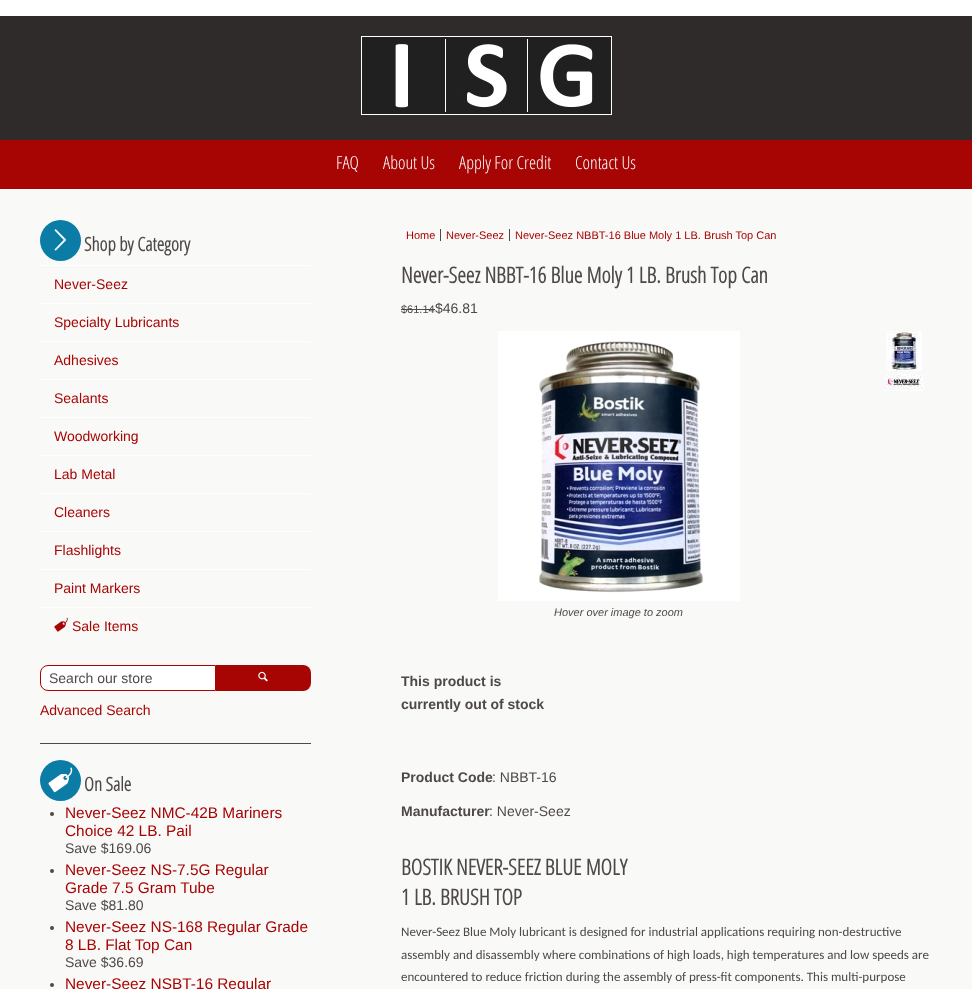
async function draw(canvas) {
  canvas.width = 972;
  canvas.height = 989;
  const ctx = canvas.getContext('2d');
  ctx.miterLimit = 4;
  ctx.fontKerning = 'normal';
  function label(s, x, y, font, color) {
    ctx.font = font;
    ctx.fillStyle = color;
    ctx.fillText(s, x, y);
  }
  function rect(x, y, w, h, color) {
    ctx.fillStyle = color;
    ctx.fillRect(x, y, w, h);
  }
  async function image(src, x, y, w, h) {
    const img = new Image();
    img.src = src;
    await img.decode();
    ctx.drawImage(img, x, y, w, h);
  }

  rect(0, 0, 972, 989, '#fff');
  rect(0, 16, 972, 124, '#2f2b2b');
  await image('assets/img1.png', 361, 36, 251, 79);
  rect(0, 140, 972, 49, '#a70404');
  label('FAQ', 336, 169, '300 18px Open Sans Condensed', '#fff');
  label('About Us', 383, 169, '300 18px Open Sans Condensed', '#fff');
  label('Apply For Credit', 459, 169, '300 18px Open Sans Condensed', '#fff');
  label('Contact Us', 575, 169, '300 18px Open Sans Condensed', '#fff');
  rect(0, 189, 972, 800, '#f9f9f7');
  rect(40, 743, 271, 1, '#4e4946');
  ctx.fillStyle = '#0b7ca6';
  ctx.beginPath();
  ctx.arc(60.5, 240.5, 20.5, 0, 2 * Math.PI);
  ctx.fill();
  await image('assets/img2.png', 54, 229, 12, 22);
  label('Shop by Category', 84, 251, 'bold 19px Open Sans Condensed', '#4e4946');
  rect(40, 265, 271, 1, '#fff');
  label('Never-Seez', 54, 289, '14px Liberation Sans', '#a70404');
  rect(40, 303, 271, 1, '#fff');
  label('Specialty Lubricants', 54, 327, '14px Liberation Sans', '#a70404');
  rect(40, 341, 271, 1, '#fff');
  label('Adhesives', 54, 365, '14px Liberation Sans', '#a70404');
  rect(40, 379, 271, 1, '#fff');
  label('Sealants', 54, 403, '14px Liberation Sans', '#a70404');
  rect(40, 417, 271, 1, '#fff');
  label('Woodworking', 54, 441, '14px Liberation Sans', '#a70404');
  rect(40, 455, 271, 1, '#fff');
  label('Lab Metal', 54, 479, '14px Liberation Sans', '#a70404');
  rect(40, 493, 271, 1, '#fff');
  label('Cleaners', 54, 517, '14px Liberation Sans', '#a70404');
  rect(40, 531, 271, 1, '#fff');
  label('Flashlights', 54, 555, '14px Liberation Sans', '#a70404');
  rect(40, 569, 271, 1, '#fff');
  label('Paint Markers', 54, 593, '14px Liberation Sans', '#a70404');
  rect(40, 607, 271, 1, '#fff');
  await image('assets/img3.png', 54, 617, 14, 15);
  label('Sale Items', 72, 631, '14px Liberation Sans', '#a70404');
  ctx.fillStyle = '#fff';
  ctx.beginPath();
  ctx.roundRect(40.5, 665.5, 175, 25, [7.5, 0, 0, 7.5]);
  ctx.fill();
  ctx.strokeStyle = '#a70404';
  ctx.stroke();
  label('Search our store', 49, 683, '14px Liberation Sans', '#4e4946');
  ctx.fillStyle = '#a70404';
  ctx.beginPath();
  ctx.roundRect(216, 665, 95, 26, [0, 8, 8, 0]);
  ctx.fill();
  await image('assets/img4.png', 258, 671, 10, 11);
  label('Advanced Search', 40, 715, '14px Liberation Sans', '#a70404');
  ctx.fillStyle = '#0b7ca6';
  ctx.beginPath();
  ctx.arc(60.5, 780.5, 20.5, 0, 2 * Math.PI);
  ctx.fill();
  await image('assets/img5.png', 48, 767, 25, 26);
  label('On Sale', 84, 791, 'bold 19px Open Sans Condensed', '#4e4946');
  ctx.beginPath();
  ctx.arc(52, 814, 2, 0, 2 * Math.PI);
  ctx.fill();
  label('Never-Seez NMC-42B Mariners', 65, 818, '15.4px Liberation Sans', '#a70404');
  label('Choice 42 LB. Pail', 65, 836, '15.4px Liberation Sans', '#a70404');
  label('Save $169.06', 65, 853, '14px Liberation Sans', '#4e4946');
  ctx.beginPath();
  ctx.arc(52, 871, 2, 0, 2 * Math.PI);
  ctx.fill();
  label('Never-Seez NS-7.5G Regular', 65, 875, '15.4px Liberation Sans', '#a70404');
  label('Grade 7.5 Gram Tube', 65, 893, '15.4px Liberation Sans', '#a70404');
  label('Save $81.80', 65, 910, '14px Liberation Sans', '#4e4946');
  ctx.beginPath();
  ctx.arc(52, 928, 2, 0, 2 * Math.PI);
  ctx.fill();
  label('Never-Seez NS-168 Regular Grade', 65, 932, '15.4px Liberation Sans', '#a70404');
  label('8 LB. Flat Top Can', 65, 950, '15.4px Liberation Sans', '#a70404');
  label('Save $36.69', 65, 967, '14px Liberation Sans', '#4e4946');
  ctx.beginPath();
  ctx.arc(52, 985, 2, 0, 2 * Math.PI);
  ctx.fill();
  label('Never-Seez NSBT-16 Regular', 65, 989, '15.4px Liberation Sans', '#a70404');
  label('Home', 406, 239, '11px Liberation Sans', '#a70404');
  label('Never-Seez', 446, 239, '11px Liberation Sans', '#a70404');
  rect(440, 229, 1, 12, '#4e4946');
  label('Never-Seez NBBT-16 Blue Moly 1 LB. Brush Top Can', 515, 239, '11px Liberation Sans', '#a70404');
  rect(509, 229, 1, 12, '#4e4946');
  label('Never-Seez NBBT-16 Blue Moly 1 LB. Brush Top Can', 401, 283, 'bold 22px Open Sans Condensed', '#4e4946');
  label('$61.14', 401, 313, '11px Liberation Sans', '#4e4946');
  rect(401, 309, 34, 1, '#4e4946');
  label('$46.81', 435, 313, '14px Liberation Sans', '#4e4946');
  await image('assets/img6.png', 886, 331, 36, 40);
  await image('assets/img7.png', 884, 374, 40, 17);
  await image('assets/img8.png', 498, 331, 242, 270);
  label('Hover over image to zoom', 554, 616, 'italic 11px Liberation Sans', '#4e4946');
  label('This product is', 401, 686, 'bold 14px Liberation Sans', '#4e4946');
  label('currently out of stock', 401, 709, 'bold 14px Liberation Sans', '#4e4946');
  label('Product Code', 401, 782, 'bold 14px Liberation Sans', '#4e4946');
  label(': NBBT-16', 492, 782, '14px Liberation Sans', '#4e4946');
  label('Manufacturer', 401, 816, 'bold 14px Liberation Sans', '#4e4946');
  label(': Never-Seez', 489, 816, '14px Liberation Sans', '#4e4946');
  label('BOSTIK NEVER-SEEZ BLUE MOLY', 401, 875, 'bold 22px Open Sans Condensed', '#4e4946');
  label('1 LB. BRUSH TOP', 401, 905, 'bold 22px Open Sans Condensed', '#4e4946');
  label('Never-Seez Blue Moly lubricant is designed for industrial applications requiring non-destructive', 401, 936, '13px Carlito', '#4e4946');
  label('assembly and disassembly where combinations of high loads, high temperatures and low speeds are', 401, 959, '13px Carlito', '#4e4946');
  label('encountered to reduce friction during the assembly of press-fit components. This multi-purpose', 401, 981, '13px Carlito', '#4e4946');
}

draw(document.querySelector('canvas'));
